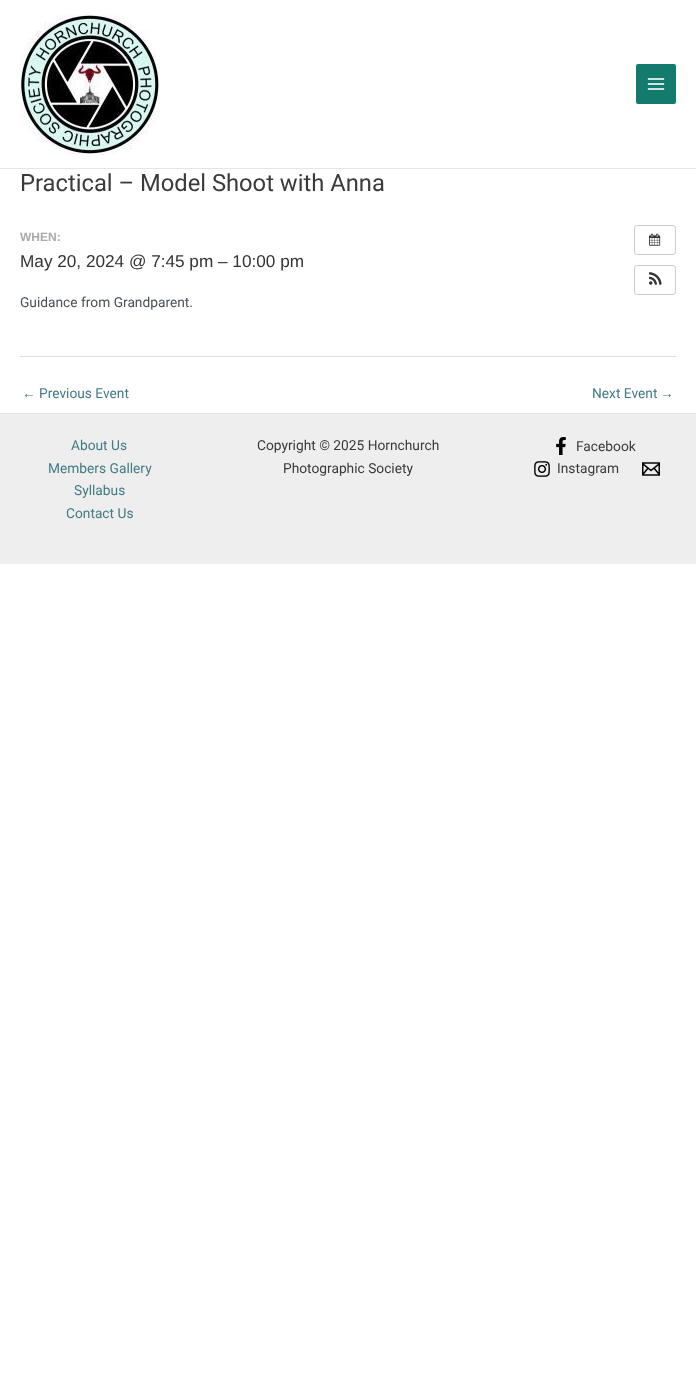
async function draw(canvas) {
  canvas.width = 696;
  canvas.height = 1376;
  const ctx = canvas.getContext('2d');
  ctx.miterLimit = 4;
  ctx.fontKerning = 'normal';
  function label(s, x, y, font, color) {
    ctx.font = font;
    ctx.fillStyle = color;
    ctx.fillText(s, x, y);
  }
  function rect(x, y, w, h, color) {
    ctx.fillStyle = color;
    ctx.fillRect(x, y, w, h);
  }
  function roundedRect(x, y, w, h, r, color) {
    ctx.fillStyle = color;
    ctx.beginPath();
    ctx.roundRect(x, y, w, h, r);
    ctx.fill();
  }
  async function image(src, x, y, w, h) {
    const img = new Image();
    img.src = src;
    await img.decode();
    ctx.drawImage(img, x, y, w, h);
  }

  rect(0, 0, 696, 1376, '#fff');
  rect(0, 168, 696, 1, '#e5e5e5');
  await image('assets/img1.png', 20, 14, 140, 141);
  roundedRect(636, 64, 40, 40, 2, '#127b6d');
  await image('assets/img2.png', 647, 78, 18, 12);
  label('Practical – Model Shoot with Anna', 20, 191, '23.75px Roboto', '#3a3a3a');
  label('WHEN:', 20, 241, 'bold 12px Liberation Sans', '#aaa');
  label('May 20, 2024 @ 7:45 pm – 10:00 pm', 20, 267, '17.2px Liberation Sans', '#333');
  ctx.beginPath();
  ctx.roundRect(634.5, 225.5, 41, 29, 2.5);
  ctx.strokeStyle = '#ccc';
  ctx.stroke();
  await image('assets/img3.png', 649, 233, 12, 13);
  ctx.beginPath();
  ctx.roundRect(634.5, 265.5, 41, 29, 2.5);
  ctx.stroke();
  await image('assets/img4.png', 649, 272, 13, 13);
  label('Guidance from Grandparent.', 20, 307, '13.75px Roboto', '#4b4f58');
  rect(20, 356, 656, 1, '#ddd');
  label('←', 22, 398, '13.75px Liberation Sans', '#417b86');
  label('Previous Event', 39, 398, '13.75px Roboto', '#417b86');
  label('Next Event', 592, 398, '13.75px Roboto', '#417b86');
  label('→', 660, 398, '13.75px Liberation Sans', '#417b86');
  rect(0, 414, 696, 150, '#eee');
  rect(0, 413, 696, 1, '#e5e5e5');
  label('About Us', 71, 450, '13.75px Roboto', '#417b86');
  label('Members Gallery', 48, 473, '13.75px Roboto', '#417b86');
  label('Syllabus', 74, 495, '13.75px Roboto', '#417b86');
  label('Contact Us', 66, 518, '13.75px Roboto', '#417b86');
  label('Copyright © 2025 Hornchurch', 257, 450, '13.75px Roboto', '#3a3a3a');
  label('Photographic Society', 283, 473, '13.75px Roboto', '#3a3a3a');
  await image('assets/img5.png', 556, 437, 10, 18);
  label('Facebook', 576, 451, '13.75px Roboto', '#3a3a3a');
  await image('assets/img6.png', 534, 461, 16, 16);
  label('Instagram', 557, 473, '13.75px Roboto', '#3a3a3a');
  await image('assets/img7.png', 642, 462, 18, 14);
}

draw(document.querySelector('canvas'));
